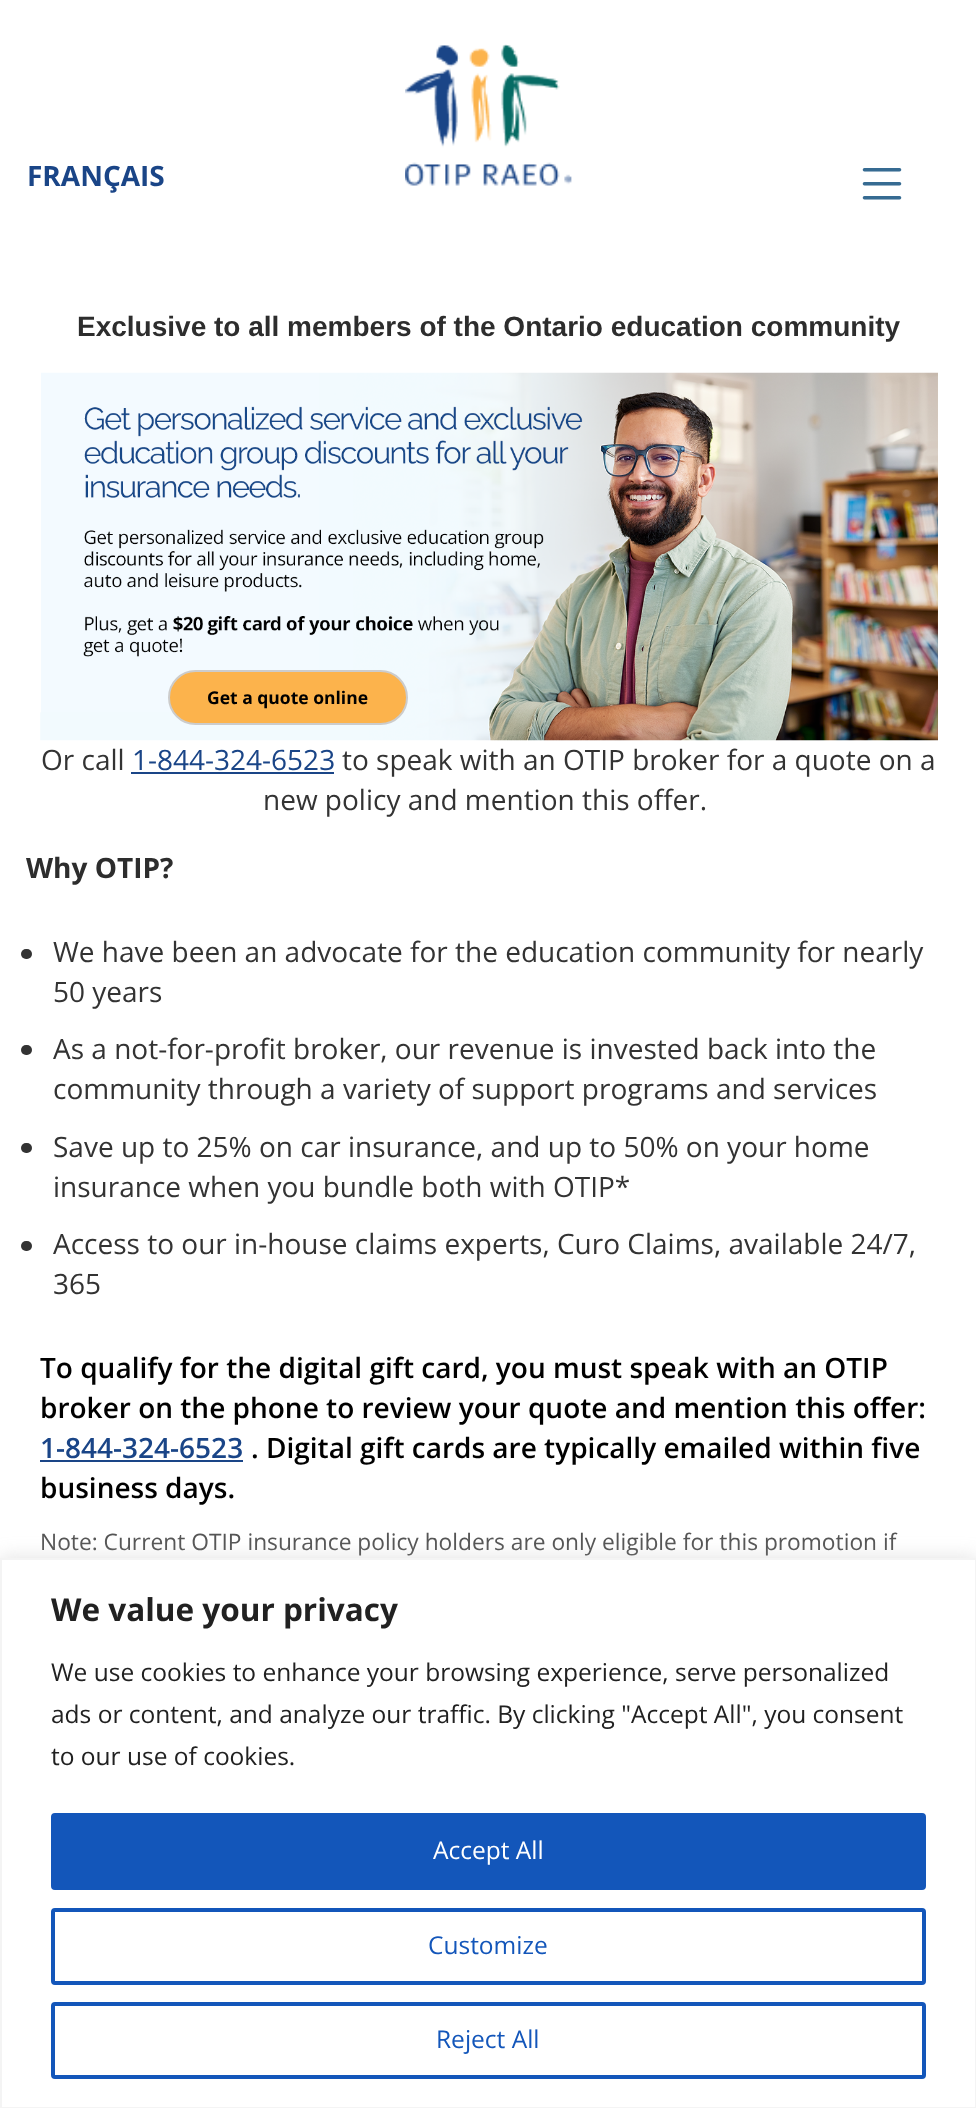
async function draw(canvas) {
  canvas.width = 976;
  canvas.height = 2108;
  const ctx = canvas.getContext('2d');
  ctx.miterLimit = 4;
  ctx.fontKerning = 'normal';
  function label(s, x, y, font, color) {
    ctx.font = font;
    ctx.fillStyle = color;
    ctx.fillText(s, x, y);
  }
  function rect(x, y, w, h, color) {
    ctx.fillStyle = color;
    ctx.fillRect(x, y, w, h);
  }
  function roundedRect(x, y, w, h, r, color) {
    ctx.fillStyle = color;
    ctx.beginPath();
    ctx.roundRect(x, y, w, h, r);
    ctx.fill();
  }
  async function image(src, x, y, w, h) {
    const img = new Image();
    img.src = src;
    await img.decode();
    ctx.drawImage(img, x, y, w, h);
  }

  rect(0, 0, 976, 2108, '#fff');
  label('FRANÇAIS', 27, 186, 'bold 28px Open Sans', '#1a4587');
  await image('assets/img1.png', 405, 44, 167, 142);
  await image('assets/img2.png', 862, 168, 40, 32);
  label('Exclusive to all members of the Ontario education community', 77, 336, 'bold 28px Liberation Sans', '#2d2d2d');
  await image('assets/img3.png', 40, 372, 898, 369);
  ctx.fillStyle = '#fcb34c';
  ctx.beginPath();
  ctx.roundRect(169, 671, 238, 53, 26.5);
  ctx.fill();
  ctx.strokeStyle = '#ccc';
  ctx.lineWidth = 2;
  ctx.stroke();
  label('Get a quote online', 207, 704, 'bold 17.5px Open Sans', '#000');
  label('Or call', 41, 770, '28px Open Sans', '#333');
  label('1-844-324-6523', 132, 770, '28px Open Sans', '#1a4587');
  rect(131, 772, 203, 2, '#1a4587');
  label('to speak with an OTIP broker for a quote on a', 342, 770, '28px Open Sans', '#333');
  label('new policy and mention this offer.', 263, 810, '28px Open Sans', '#333');
  label('Why OTIP?', 26, 878, 'bold 28px Open Sans', '#2d2d2d');
  roundedRect(21, 949, 11, 10, 5, '#333');
  label('We have been an advocate for the education community for nearly', 53, 962, '28px Open Sans', '#333');
  label('50 years', 53, 1002, '28px Open Sans', '#333');
  roundedRect(21, 1045, 11, 10, 5, '#333');
  label('As a not-for-profit broker, our revenue is invested back into the', 53, 1059, '28px Open Sans', '#333');
  label('community through a variety of support programs and services', 53, 1099, '28px Open Sans', '#333');
  roundedRect(21, 1143, 11, 10, 5, '#333');
  label('Save up to 25% on car insurance, and up to 50% on your home', 53, 1157, '28px Open Sans', '#333');
  label('insurance when you bundle both with OTIP*', 53, 1197, '28px Open Sans', '#333');
  roundedRect(21, 1241, 11, 10, 5, '#333');
  label('Access to our in-house claims experts, Curo Claims, available 24/7,', 53, 1254, '28px Open Sans', '#333');
  label('365', 53, 1294, '28px Open Sans', '#333');
  label('To qualify for the digital gift card, you must speak with an OTIP', 40, 1378, '600 28px Open Sans', '#000');
  label('broker on the phone to review your quote and mention this offer:', 40, 1418, '600 28px Open Sans', '#000');
  label('1-844-324-6523', 40, 1458, '600 28px Open Sans', '#1a4587');
  rect(40, 1460, 203, 2, '#1a4587');
  label('. Digital gift cards are typically emailed within five', 251, 1458, '600 28px Open Sans', '#000');
  label('business days.', 40, 1498, '600 28px Open Sans', '#000');
  label('Note: Current OTIP insurance policy holders are only eligible for this promotion if', 40, 1550, '22.75px Open Sans', '#555');
  ctx.fillStyle = '#acabab4d';
  ctx.filter = 'blur(9px)';
  ctx.beginPath();
  ctx.rect(0, 1556, 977, 551);
  ctx.fill();
  ctx.filter = 'none';
  ctx.fillStyle = '#fff';
  ctx.beginPath();
  ctx.rect(1, 1559, 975, 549);
  ctx.fill();
  ctx.strokeStyle = '#f4f4f4';
  ctx.stroke();
  label('We value your privacy', 51, 1621, 'bold 31.5px Open Sans', '#212121');
  label('We use cookies to enhance your browsing experience, serve personalized', 51, 1681, '24.5px Open Sans', '#212121');
  label('ads or content, and analyze our traffic. By clicking "Accept All", you consent', 51, 1723, '24.5px Open Sans', '#212121');
  label('to our use of cookies.', 51, 1765, '24.5px Open Sans', '#212121');
  ctx.fillStyle = '#1356ba';
  ctx.beginPath();
  ctx.roundRect(53, 1815, 871, 73, 2);
  ctx.fill();
  ctx.strokeStyle = '#1356ba';
  ctx.lineWidth = 4;
  ctx.stroke();
  label('Accept All', 433, 1859, '24.5px Open Sans', '#fff');
  ctx.beginPath();
  ctx.roundRect(53, 1910, 871, 73, 2);
  ctx.stroke();
  label('Customize', 428, 1954, '24.5px Open Sans', '#1356ba');
  ctx.beginPath();
  ctx.roundRect(53, 2004, 871, 73, 2);
  ctx.stroke();
  label('Reject All', 436, 2048, '24.5px Open Sans', '#1356ba');
}

draw(document.querySelector('canvas'));
